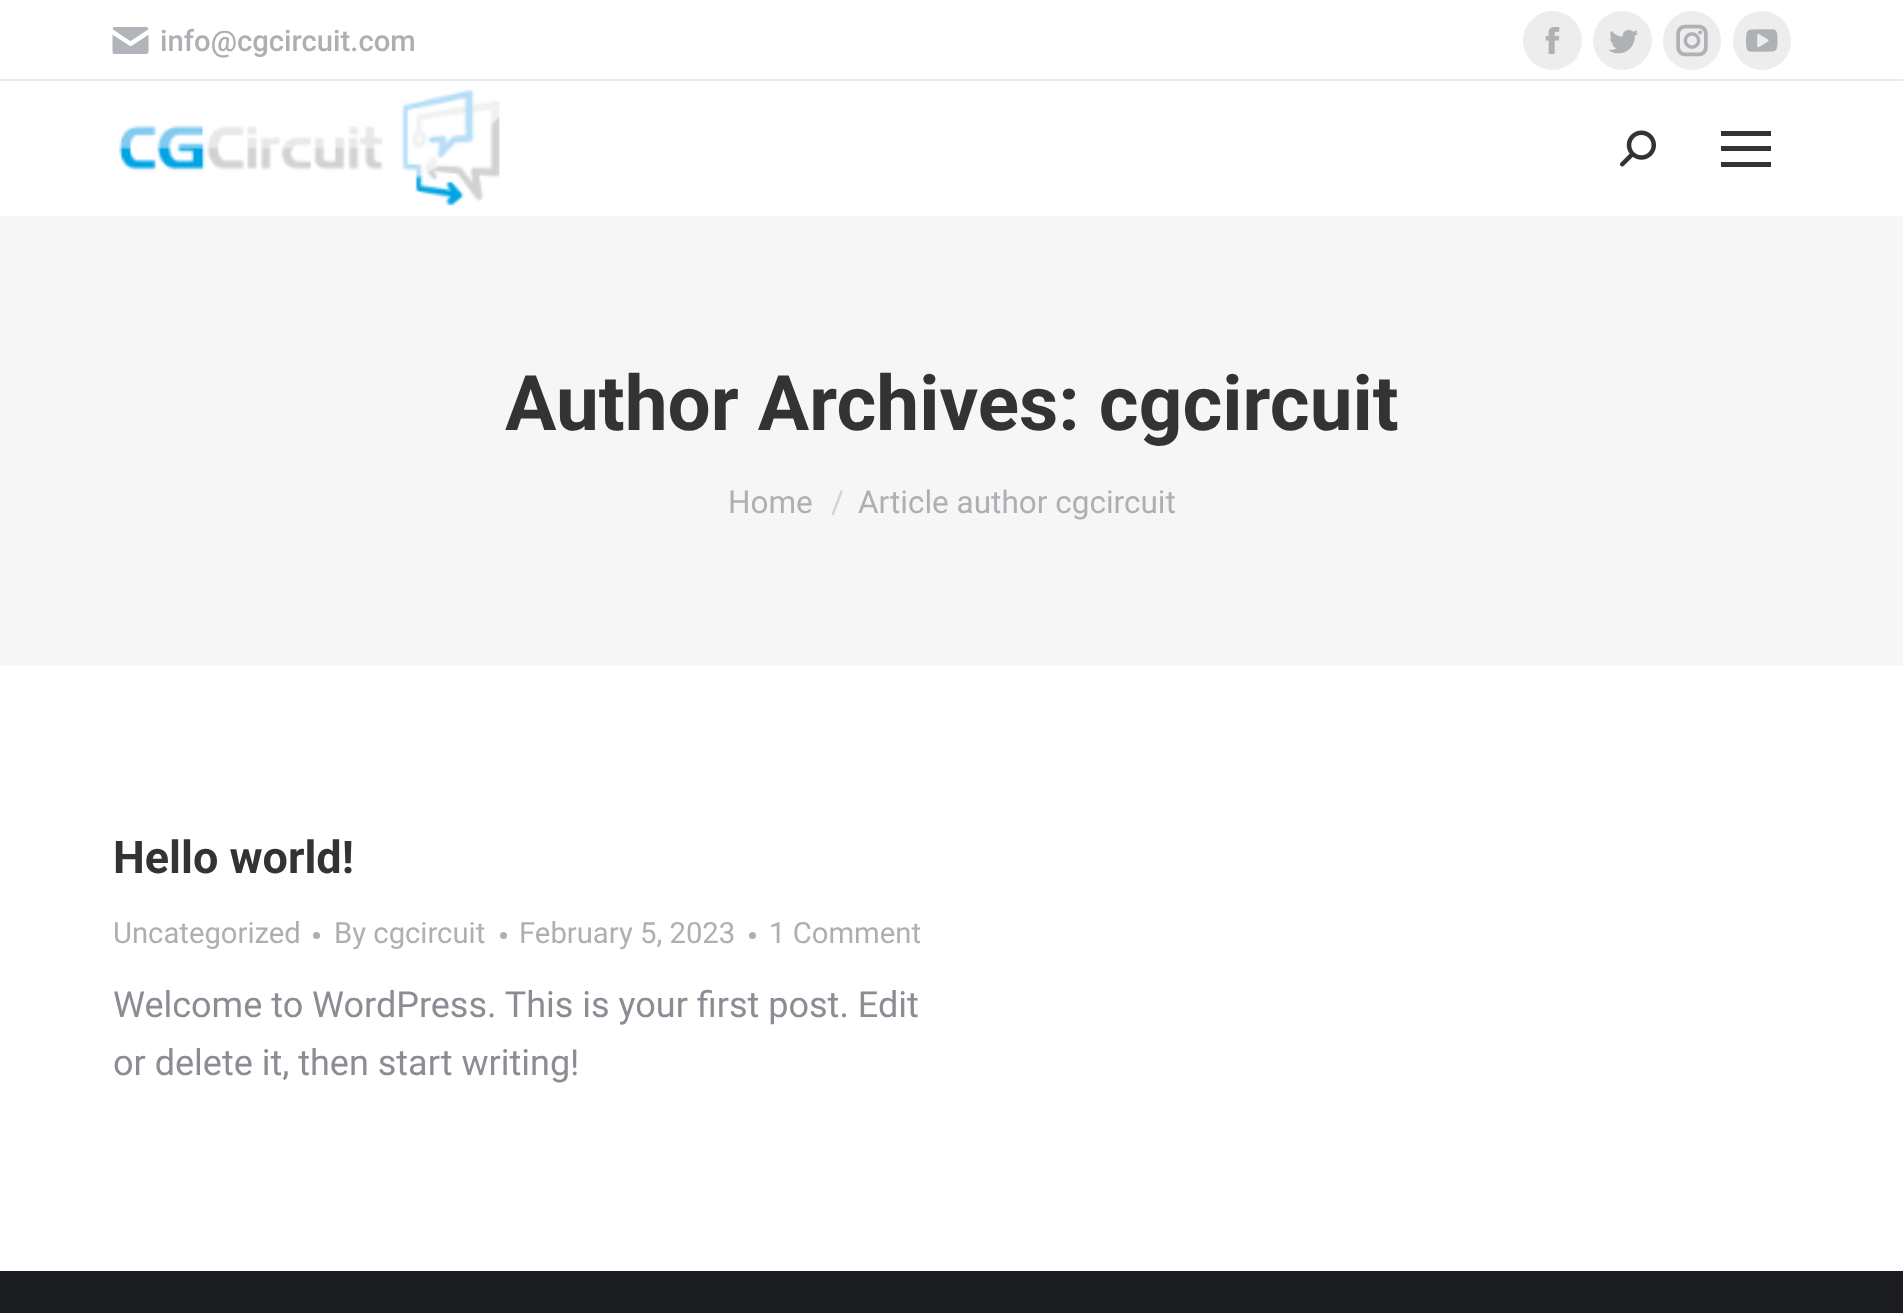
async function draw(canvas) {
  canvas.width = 1903;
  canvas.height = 1313;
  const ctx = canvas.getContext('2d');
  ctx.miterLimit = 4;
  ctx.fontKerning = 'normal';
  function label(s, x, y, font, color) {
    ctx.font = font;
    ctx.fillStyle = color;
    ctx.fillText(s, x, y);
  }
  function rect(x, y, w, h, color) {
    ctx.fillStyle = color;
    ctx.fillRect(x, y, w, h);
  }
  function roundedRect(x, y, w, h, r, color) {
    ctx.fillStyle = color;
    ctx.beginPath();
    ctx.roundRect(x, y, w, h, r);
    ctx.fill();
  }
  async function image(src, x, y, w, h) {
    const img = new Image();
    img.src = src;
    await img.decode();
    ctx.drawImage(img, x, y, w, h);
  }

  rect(0, 0, 1903, 1313, '#fff');
  await image('assets/img1.png', 112, 27, 37, 27);
  label('info@cgcircuit.com', 160, 51, '500 29.25px Roboto', '#adafb3');
  ctx.fillStyle = '#ededed';
  ctx.beginPath();
  ctx.arc(1552.5, 40.5, 29.5, 0, 2 * Math.PI);
  ctx.fill();
  await image('assets/img2.png', 1545, 27, 15, 27);
  ctx.beginPath();
  ctx.arc(1622.5, 40.5, 29.5, 0, 2 * Math.PI);
  ctx.fill();
  await image('assets/img3.png', 1609, 30, 29, 24);
  roundedRect(1663, 11, 58, 59, 29, '#ededed');
  await image('assets/img4.png', 1676, 24, 32, 33);
  roundedRect(1733, 11, 58, 59, 29, '#ededed');
  await image('assets/img5.png', 1746, 29, 32, 23);
  rect(0, 79, 1903, 2, '#e9e9e9');
  await image('assets/img6.png', 118, 89, 382, 117);
  await image('assets/img7.png', 1620, 130, 36, 37);
  rect(1721, 131, 50, 5, '#333');
  rect(1721, 146, 50, 5, '#333');
  rect(1721, 162, 50, 5, '#333');
  rect(0, 216, 1903, 450, '#f6f6f6');
  label('Author Archives: cgcircuit', 505, 430, 'bold 76.5px Roboto', '#333');
  label('Home', 728, 513, '31.5px Roboto', '#adafb3');
  label('/', 831, 513, '31.5px Roboto', '#d2d3d5');
  label('Article author cgcircuit', 858, 513, '31.5px Roboto', '#adafb3');
  label('Hello world!', 113, 873, 'bold 45px Roboto', '#333');
  label('Uncategorized', 113, 943, '29.25px Roboto', '#adafb3');
  ctx.beginPath();
  ctx.arc(316.5, 935.5, 3.5, 0, 2 * Math.PI);
  ctx.fill();
  label('By cgcircuit', 334, 943, '29.25px Roboto', '#adafb3');
  ctx.beginPath();
  ctx.arc(503.5, 935.5, 3.5, 0, 2 * Math.PI);
  ctx.fill();
  label('February 5, 2023', 519, 943, '29.25px Roboto', '#adafb3');
  ctx.beginPath();
  ctx.arc(752.5, 935.5, 3.5, 0, 2 * Math.PI);
  ctx.fill();
  label('1 Comment', 769, 943, '29.25px Roboto', '#adafb3');
  label('Welcome to WordPress. This is your first post. Edit', 113, 1017, '36px Roboto', '#8b8d94');
  label('or delete it, then start writing!', 113, 1075, '36px Roboto', '#8b8d94');
  rect(0, 1271, 1903, 42, '#1a1c20');
}

draw(document.querySelector('canvas'));
